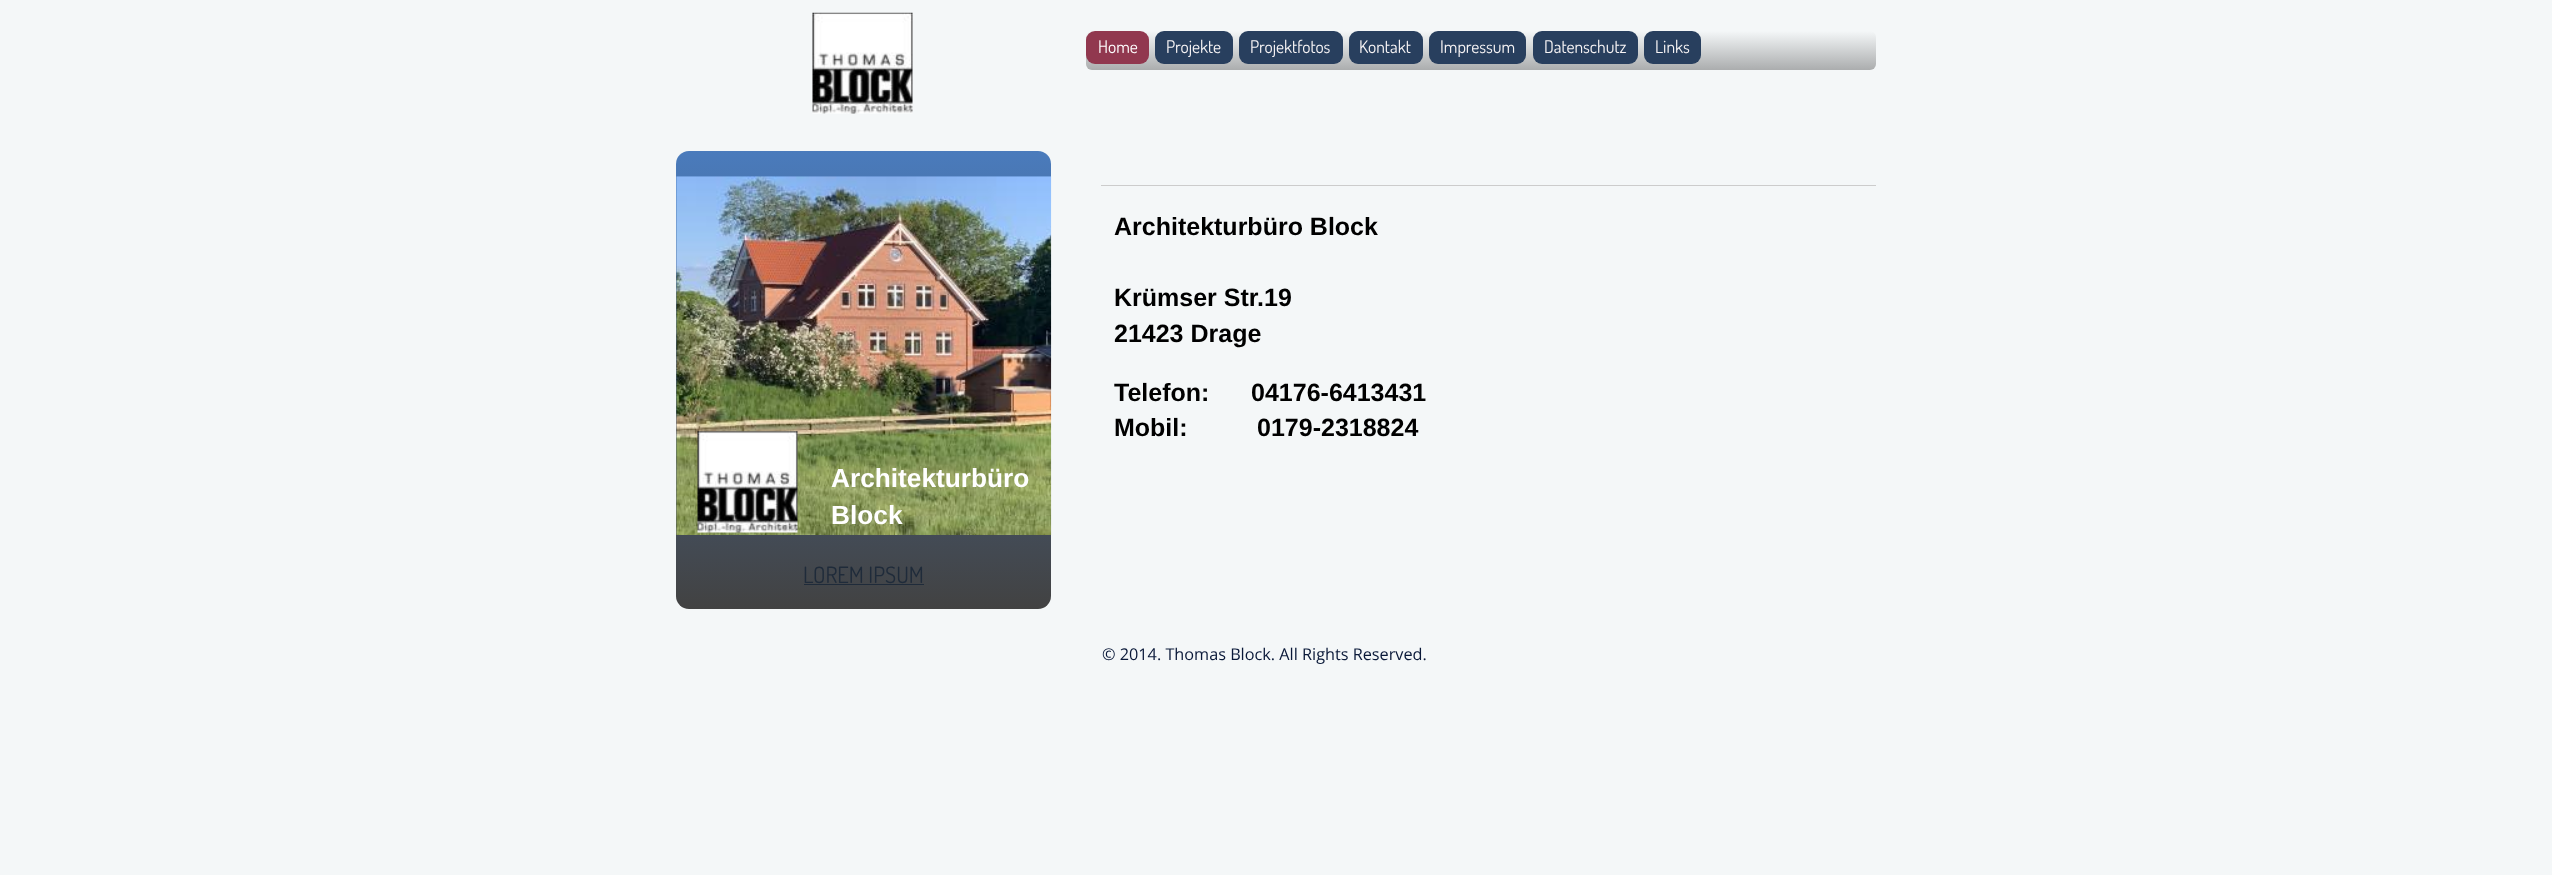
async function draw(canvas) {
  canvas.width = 2552;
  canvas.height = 875;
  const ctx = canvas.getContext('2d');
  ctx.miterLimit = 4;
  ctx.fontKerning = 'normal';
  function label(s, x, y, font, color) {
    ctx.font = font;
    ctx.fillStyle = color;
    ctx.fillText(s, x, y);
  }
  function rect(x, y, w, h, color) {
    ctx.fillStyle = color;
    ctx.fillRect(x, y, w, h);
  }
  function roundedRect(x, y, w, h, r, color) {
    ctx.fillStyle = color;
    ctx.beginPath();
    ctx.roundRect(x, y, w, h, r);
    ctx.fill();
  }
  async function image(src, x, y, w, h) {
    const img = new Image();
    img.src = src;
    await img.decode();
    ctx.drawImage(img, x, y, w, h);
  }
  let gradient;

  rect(0, 0, 2552, 875, '#f4f7f8');
  await image('assets/img1.png', 812, 12, 101, 102);
  gradient = ctx.createLinearGradient(1481, 70, 1481, 31);
  gradient.addColorStop(0, '#abadae');
  gradient.addColorStop(1, '#f4f7f8');
  ctx.fillStyle = gradient;
  ctx.beginPath();
  ctx.roundRect(1086, 31, 790, 39, 6);
  ctx.fill();
  roundedRect(1086, 31, 63, 33, 9, '#91384f');
  label('Home', 1098, 53, '17.5px Dosis', '#fff');
  roundedRect(1155, 31, 78, 33, 9, '#283f5e');
  label('Projekte', 1166, 53, '17.5px Dosis', '#f7f4f5');
  roundedRect(1239, 31, 104, 33, 9, '#283f5e');
  label('Projektfotos', 1250, 53, '17.5px Dosis', '#f7f4f5');
  roundedRect(1349, 31, 74, 33, 9, '#283f5e');
  label('Kontakt', 1359, 53, '17.5px Dosis', '#f7f4f5');
  roundedRect(1429, 31, 97, 33, 9, '#283f5e');
  label('Impressum', 1440, 53, '17.5px Dosis', '#f7f4f5');
  roundedRect(1533, 31, 105, 33, 9, '#283f5e');
  label('Datenschutz', 1544, 53, '17.5px Dosis', '#f7f4f5');
  roundedRect(1644, 31, 57, 33, 9, '#283f5e');
  label('Links', 1655, 53, '17.5px Dosis', '#f7f4f5');
  rect(1101, 185, 775, 1, '#ccc');
  label('Architekturbüro Block', 1114, 235, 'bold 25px Liberation Sans', '#000');
  label('Krümser Str.19', 1114, 306, 'bold 25px Liberation Sans', '#000');
  label('21423 Drage', 1114, 342, 'bold 25px Liberation Sans', '#000');
  label('Telefon:      04176-6413431', 1114, 401, 'bold 25px Liberation Sans', '#000');
  label('Mobil:          0179-2318824', 1114, 436, 'bold 25px Liberation Sans', '#000');
  gradient = ctx.createLinearGradient(864, 609, 864, 151);
  gradient.addColorStop(0, '#424242');
  gradient.addColorStop(1, '#4a7bbc');
  ctx.fillStyle = gradient;
  ctx.beginPath();
  ctx.roundRect(676, 151, 375, 458, 13);
  ctx.fill();
  await image('assets/img2.png', 676, 176, 376, 359);
  await image('assets/img3.png', 697, 431, 101, 102);
  label('Architekturbüro', 831, 487, 'bold 26.25px Liberation Sans', '#fff');
  label('Block', 831, 524, 'bold 26.25px Liberation Sans', '#fff');
  label('LOREM IPSUM', 803, 583, '22.5px Dosis', '#1f2b3a');
  rect(804, 584, 120, 1, '#1f2b3a');
  label('© 2014. Thomas Block. All Rights Reserved.', 1102, 660, '16.25px Open Sans', '#091838');
}

draw(document.querySelector('canvas'));
